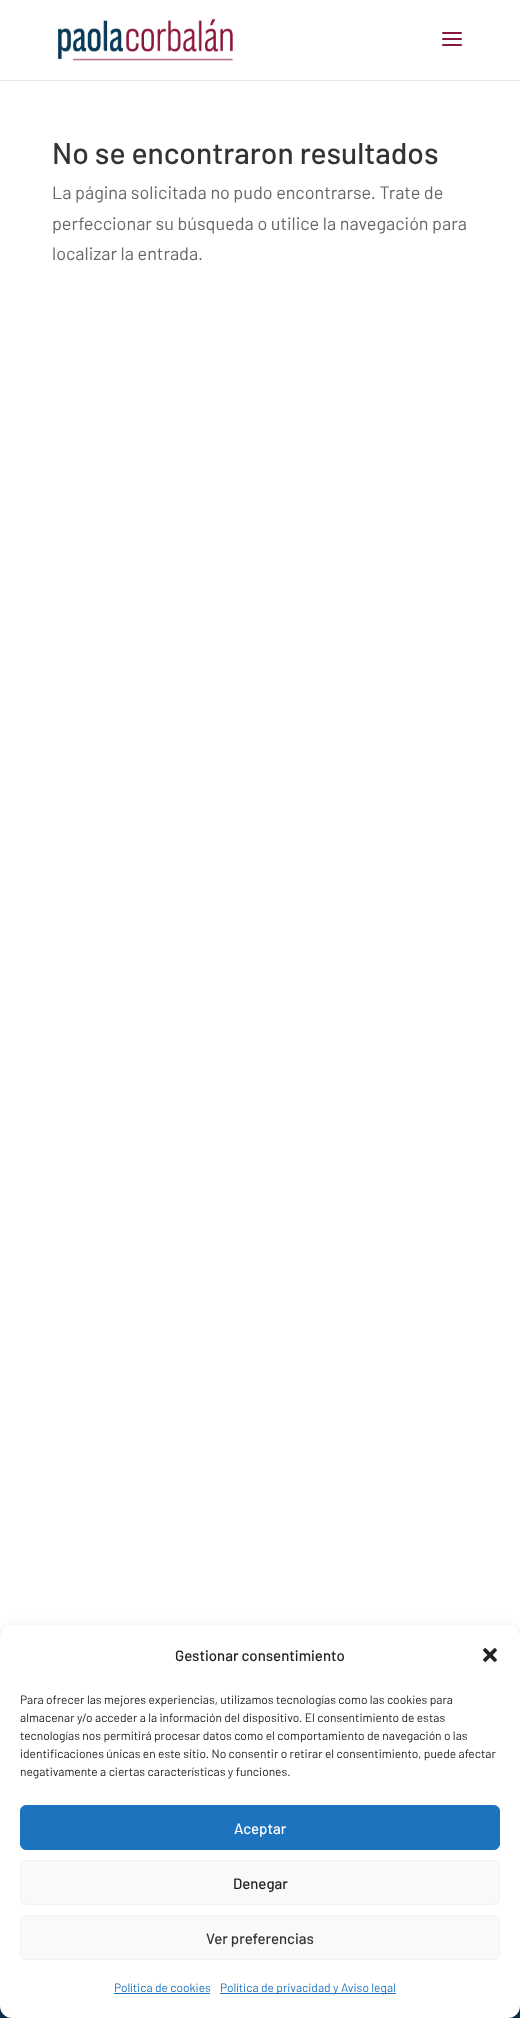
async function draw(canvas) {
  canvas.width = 520;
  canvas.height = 2018;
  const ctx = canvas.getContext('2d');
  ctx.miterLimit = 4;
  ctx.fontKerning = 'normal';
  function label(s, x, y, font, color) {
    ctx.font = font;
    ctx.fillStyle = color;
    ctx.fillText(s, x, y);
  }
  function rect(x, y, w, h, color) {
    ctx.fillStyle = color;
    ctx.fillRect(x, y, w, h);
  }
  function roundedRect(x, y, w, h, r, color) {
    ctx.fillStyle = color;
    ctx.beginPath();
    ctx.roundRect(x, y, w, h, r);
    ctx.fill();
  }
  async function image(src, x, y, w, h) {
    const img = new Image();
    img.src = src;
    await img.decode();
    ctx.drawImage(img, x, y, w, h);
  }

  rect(0, 0, 520, 2018, '#fff');
  rect(0, 80, 520, 1, '#e6e6e6');
  await image('assets/img1.png', 56, 18, 179, 43);
  await image('assets/img2.png', 442, 32, 20, 14);
  label('No se encontraron resultados', 52, 164, '500 30px Barlow', '#333');
  label('La página solicitada no pudo encontrarse. Trate de', 52, 199, '18px Barlow', '#666');
  label('perfeccionar su búsqueda o utilice la navegación para', 52, 230, '18px Barlow', '#666');
  label('localizar la entrada.', 52, 260, '18px Barlow', '#666');
  rect(0, 2006, 520, 12, '#0f3958');
  ctx.fillStyle = '#0000003b';
  ctx.filter = 'blur(3px)';
  ctx.beginPath();
  ctx.roundRect(0, 1631, 520, 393, 12);
  ctx.fill();
  ctx.filter = 'none';
  ctx.fillStyle = '#00000030';
  ctx.filter = 'blur(10px)';
  ctx.beginPath();
  ctx.roundRect(0, 1635, 520, 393, 12);
  ctx.fill();
  ctx.filter = 'none';
  roundedRect(0, 1625, 520, 393, 12, '#fff');
  label('Gestionar consentimiento', 175, 1661, '500 15px Barlow', '#222');
  await image('assets/img3.png', 483, 1648, 14, 14);
  label('Para ofrecer las mejores experiencias, utilizamos tecnologías como las cookies para', 20, 1704, '12px Barlow', '#222');
  label('almacenar y/o acceder a la información del dispositivo. El consentimiento de estas', 20, 1722, '12px Barlow', '#222');
  label('tecnologías nos permitirá procesar datos como el comportamiento de navegación o las', 20, 1740, '12px Barlow', '#222');
  label('identificaciones únicas en este sitio. No consentir o retirar el consentimiento, puede afectar', 20, 1758, '12px Barlow', '#222');
  label('negativamente a ciertas características y funciones.', 20, 1776, '12px Barlow', '#222');
  ctx.fillStyle = '#1e73be';
  ctx.beginPath();
  ctx.roundRect(20.5, 1805.5, 479, 44, 5.5);
  ctx.fill();
  ctx.strokeStyle = '#1e73be';
  ctx.stroke();
  label('Aceptar', 234, 1834, '500 15px Barlow', '#fff');
  ctx.fillStyle = '#f9f9f9';
  ctx.beginPath();
  ctx.roundRect(20.5, 1860.5, 479, 44, 5.5);
  ctx.fill();
  ctx.strokeStyle = '#f2f2f2';
  ctx.stroke();
  label('Denegar', 233, 1889, '500 15px Barlow', '#222');
  ctx.fillStyle = '#f9f9f9';
  ctx.beginPath();
  ctx.roundRect(20.5, 1915.5, 479, 44, 5.5);
  ctx.fill();
  ctx.stroke();
  label('Ver preferencias', 206, 1944, '500 15px Barlow', '#333');
  label('Política de cookies', 114, 1992, '12px Barlow', '#1e73be');
  rect(114, 1993, 96, 1, '#1e73be');
  rect(220, 1993, 176, 1, '#1e73be');
  label('Política de privacidad y Aviso legal', 220, 1992, '12px Barlow', '#1e73be');
}

draw(document.querySelector('canvas'));
